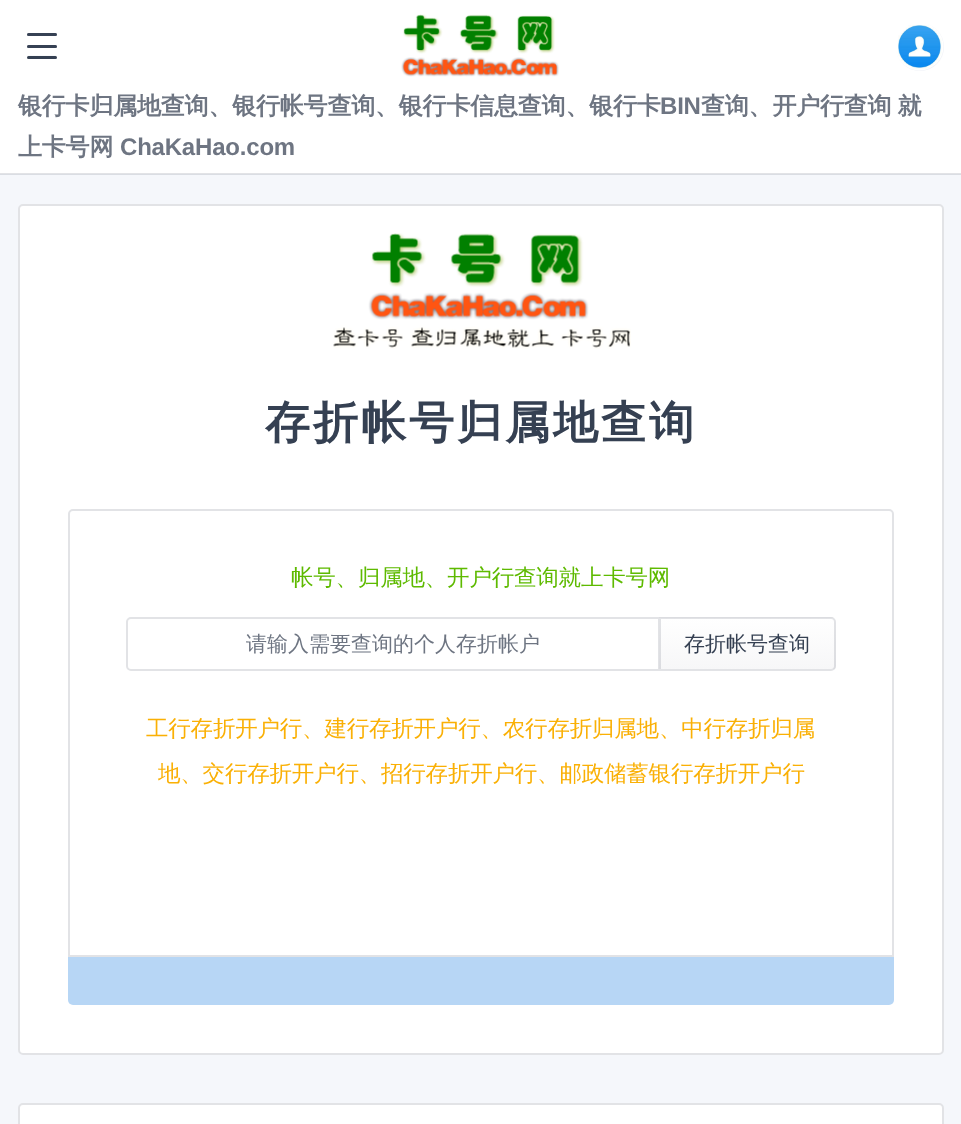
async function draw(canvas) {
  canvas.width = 961;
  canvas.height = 1124;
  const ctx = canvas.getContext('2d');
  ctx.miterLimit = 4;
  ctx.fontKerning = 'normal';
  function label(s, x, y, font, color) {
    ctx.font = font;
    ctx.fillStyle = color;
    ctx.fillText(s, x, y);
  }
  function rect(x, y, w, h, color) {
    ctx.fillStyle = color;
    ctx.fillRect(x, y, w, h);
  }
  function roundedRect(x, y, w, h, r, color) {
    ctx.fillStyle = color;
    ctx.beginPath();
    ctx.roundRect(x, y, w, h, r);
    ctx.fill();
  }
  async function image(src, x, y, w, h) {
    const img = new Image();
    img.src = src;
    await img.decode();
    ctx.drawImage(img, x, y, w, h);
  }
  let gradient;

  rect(0, 0, 961, 1124, '#f5f7fb');
  rect(0, 174, 961, 1, '#dadde3');
  rect(0, 0, 961, 173, '#fff');
  rect(27, 33, 30, 3, '#d9dbe0');
  rect(27, 45, 30, 3, '#d9dbe0');
  rect(0, 173, 961, 1, '#e2e3e6');
  roundedRect(27, 45, 30, 3, 1.5, '#364154');
  roundedRect(27, 33, 30, 3, 1.5, '#364154');
  roundedRect(27, 56, 30, 3, 1.5, '#354052');
  await image('assets/img1.png', 27, 55, 30, 2);
  await image('assets/img2.png', 401, 14, 158, 63);
  ctx.fillStyle = '#f1f3f8';
  ctx.beginPath();
  ctx.arc(920, 47, 24, 0, 2 * Math.PI);
  ctx.fill();
  await image('assets/img3.png', 896, 23, 48, 48);
  ctx.letterSpacing = '-0.2px';
  label('银行卡归属地查询、银行帐号查询、银行卡信息查询、银行卡', 18, 114, 'bold 24px WenQuanYi Zen Hei', '#6e7582');
  label('BIN', 660, 114, 'bold 24px Liberation Sans', '#6e7582');
  ctx.wordSpacing = '-1px';
  label('查询、开户行查询 就', 701, 114, 'bold 24px WenQuanYi Zen Hei', '#6e7582');
  ctx.wordSpacing = '0px';
  label('上卡号网', 18, 155, 'bold 24px WenQuanYi Zen Hei', '#6e7582');
  label('ChaKaHao.com', 120, 155, 'bold 24px Liberation Sans', '#6e7582');
  roundedRect(18, 204, 926, 851, 5, '#fff');
  ctx.beginPath();
  ctx.roundRect(19, 205, 924, 849, 4);
  ctx.strokeStyle = '#6e758233';
  ctx.lineWidth = 2;
  ctx.stroke();
  await image('assets/img4.png', 333, 233, 298, 116);
  ctx.letterSpacing = '3px';
  label('存折帐号归属地查询', 265, 438, 'bold 45px WenQuanYi Zen Hei', '#354052');
  ctx.beginPath();
  ctx.roundRect(69, 510, 824, 446, [4, 4, 0, 0]);
  ctx.strokeStyle = '#e2e3e6';
  ctx.stroke();
  ctx.letterSpacing = '-0.2px';
  label('帐号、归属地、开户行查询就上卡号网', 291, 585, '500 22.5px WenQuanYi Zen Hei', '#5eba00');
  ctx.beginPath();
  ctx.roundRect(127, 618, 532, 52, [4, 0, 0, 4]);
  ctx.stroke();
  ctx.letterSpacing = '0px';
  label('请输入需要查询的个人存折帐户', 246, 651, '500 21px WenQuanYi Zen Hei', '#6e7582');
  ctx.fillStyle = '#fff';
  ctx.beginPath();
  ctx.roundRect(659, 617, 177, 54, [0, 5, 5, 0]);
  ctx.fill();
  ctx.save();
  ctx.beginPath();
  ctx.roundRect(659, 617, 177, 54, [0, 5, 5, 0]);
  ctx.clip();
  gradient = ctx.createLinearGradient(747, 567, 747, 618);
  gradient.addColorStop(0, '#fff');
  gradient.addColorStop(1, '#f7f7f8');
  ctx.fillStyle = gradient;
  ctx.fillRect(659, 617, 177, 1);
  gradient = ctx.createLinearGradient(747, 618, 747, 669);
  gradient.addColorStop(0, '#fff');
  gradient.addColorStop(1, '#f7f7f8');
  ctx.fillStyle = gradient;
  ctx.fillRect(659, 618, 177, 51);
  ctx.restore();
  ctx.beginPath();
  ctx.roundRect(660, 618, 175, 52, [0, 4, 4, 0]);
  ctx.strokeStyle = '#6e758233';
  ctx.stroke();
  label('存折帐号查询', 684, 651, '500 21px WenQuanYi Zen Hei', '#354052');
  ctx.letterSpacing = '-0.2px';
  label('工行存折开户行、建行存折开户行、农行存折归属地、中行存折归属', 146, 736, '500 22.5px WenQuanYi Zen Hei', '#fab005');
  label('地、交行存折开户行、招行存折开户行、邮政储蓄银行存折开户行', 158, 781, '500 22.5px WenQuanYi Zen Hei', '#fab005');
  ctx.fillStyle = '#b7d6f5';
  ctx.beginPath();
  ctx.roundRect(68, 957, 826, 48, [0, 0, 5, 5]);
  ctx.fill();
  roundedRect(18, 1103, 926, 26, 5, '#fff');
  ctx.beginPath();
  ctx.roundRect(19, 1104, 924, 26, 4);
  ctx.stroke();
}

draw(document.querySelector('canvas'));
